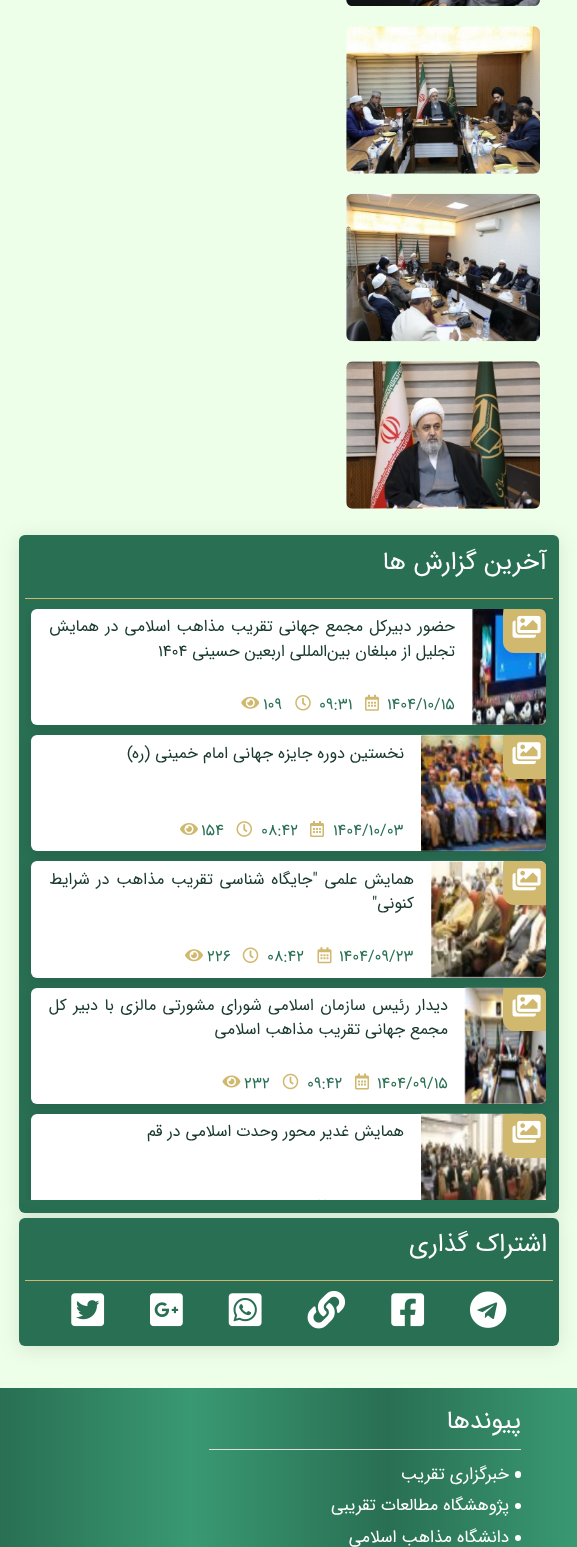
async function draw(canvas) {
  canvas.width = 577;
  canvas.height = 1547;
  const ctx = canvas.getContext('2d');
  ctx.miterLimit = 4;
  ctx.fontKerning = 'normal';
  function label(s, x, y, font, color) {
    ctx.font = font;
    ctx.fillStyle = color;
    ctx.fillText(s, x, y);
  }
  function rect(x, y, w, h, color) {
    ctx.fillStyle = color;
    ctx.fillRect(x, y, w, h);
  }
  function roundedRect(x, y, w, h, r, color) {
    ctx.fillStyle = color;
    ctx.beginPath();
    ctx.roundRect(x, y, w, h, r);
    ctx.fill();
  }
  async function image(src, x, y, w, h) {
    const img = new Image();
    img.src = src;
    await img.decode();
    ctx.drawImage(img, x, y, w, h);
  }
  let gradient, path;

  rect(0, 0, 577, 1547, '#edffe8');
  await image('assets/img1.png', 346, 0, 194, 6);
  await image('assets/img2.png', 346, 26, 194, 148);
  await image('assets/img3.png', 346, 193, 194, 149);
  await image('assets/img4.png', 346, 361, 194, 148);
  ctx.fillStyle = '#0000001a';
  ctx.filter = 'blur(9.5px)';
  ctx.beginPath();
  ctx.roundRect(19, 538, 540, 677, 6);
  ctx.fill();
  ctx.filter = 'none';
  roundedRect(19, 535, 540, 678, 6, '#296f53');
  rect(25, 598, 528, 1, '#d0b86e');
  ctx.direction = 'rtl';
  label('آخرین گزارش ها', 547, 569, '25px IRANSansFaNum', '#fff');
  ctx.save();
  ctx.beginPath();
  ctx.rect(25, 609, 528, 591);
  ctx.clip();
  ctx.fillStyle = '#0000001a';
  ctx.filter = 'blur(6px)';
  ctx.beginPath();
  ctx.roundRect(31, 613, 515, 116, 6);
  ctx.fill();
  ctx.filter = 'none';
  ctx.restore();
  roundedRect(31, 609, 515, 116, 6, '#fff');
  await image('assets/img6.png', 472, 609, 74, 117);
  ctx.save();
  ctx.beginPath();
  ctx.roundRect(31, 609, 515, 116, 6);
  ctx.clip();
  ctx.fillStyle = '#d0b86e';
  path = new Path2D('M540.5 578C561 578 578 595 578 615.5V637C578 646 571 653 562 653H514C508 653 503 648 503 642V615.5C503 595 520 578 540.5 578Z');
  ctx.fill(path);
  ctx.restore();
  await image('assets/img5.png', 512, 615, 29, 23);
  ctx.wordSpacing = '1.25px';
  label('حضور دبیرکل مجمع جهانی تقریب مذاهب اسلامی در همایش', 455, 631, '16.25px IRANSansFaNum', '#17382b');
  ctx.wordSpacing = '0px';
  label('تجلیل از مبلغان بین‌المللی اربعین حسینی', 455, 656, '16.25px IRANSansFaNum', '#17382b');
  ctx.direction = 'ltr';
  label('۱۴۰۴', 158, 656, '16.25px IRANSansFaNum', '#17382b');
  label('۱۴۰۴/۱۰/۱۵', 387, 709, '16px IRANSansFaNum', '#296f53');
  await image('assets/img7.png', 365, 694, 14, 17);
  label('۰۹:۳۱', 319, 709, '16px IRANSansFaNum', '#296f53');
  await image('assets/img8.png', 295, 695, 16, 16);
  label('109', 263, 709, '16px IRANSansFaNum', '#296f53');
  await image('assets/img9.png', 241, 696, 19, 13);
  ctx.fillStyle = '#0000001a';
  ctx.filter = 'blur(6px)';
  ctx.beginPath();
  ctx.roundRect(31, 739, 515, 116, 6);
  ctx.fill();
  ctx.filter = 'none';
  roundedRect(31, 735, 515, 116, 6, '#fff');
  await image('assets/img11.png', 421, 734, 125, 118);
  ctx.save();
  ctx.beginPath();
  ctx.roundRect(31, 735, 515, 116, 6);
  ctx.clip();
  ctx.fillStyle = '#d0b86e';
  path = new Path2D('M540.5 704C561 704 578 721 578 741.5V763C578 772 571 779 562 779H514C508 779 503 774 503 768V741.5C503 721 520 704 540.5 704Z');
  ctx.fill(path);
  ctx.restore();
  await image('assets/img10.png', 512, 742, 29, 23);
  ctx.direction = 'rtl';
  label('نخستین دوره جایزه جهانی امام خمینی (ره)', 404, 758, '16.25px IRANSansFaNum', '#17382b');
  ctx.direction = 'ltr';
  label('۱۴۰۴/۱۰/۰۳', 333, 835, '16px IRANSansFaNum', '#296f53');
  await image('assets/img12.png', 310, 821, 14, 16);
  label('۰۸:۴۲', 261, 835, '16px IRANSansFaNum', '#296f53');
  await image('assets/img13.png', 236, 821, 16, 16);
  label('154', 201, 835, '16px IRANSansFaNum', '#296f53');
  await image('assets/img14.png', 180, 823, 18, 12);
  ctx.fillStyle = '#0000001a';
  ctx.filter = 'blur(6px)';
  ctx.beginPath();
  ctx.roundRect(31, 865, 515, 116, 6);
  ctx.fill();
  ctx.filter = 'none';
  roundedRect(31, 861, 515, 117, 6, '#fff');
  await image('assets/img16.png', 431, 860, 115, 118);
  ctx.save();
  ctx.beginPath();
  ctx.roundRect(31, 861, 515, 117, 6);
  ctx.clip();
  ctx.fillStyle = '#d0b86e';
  path = new Path2D('M540.5 830C561 830 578 847 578 867.5V889C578 898 571 905 562 905H514C508 905 503 900 503 894V867.5C503 847 520 830 540.5 830Z');
  ctx.fill(path);
  ctx.restore();
  await image('assets/img15.png', 512, 868, 29, 23);
  ctx.wordSpacing = '1.75px';
  ctx.direction = 'rtl';
  label('همایش علمی "جایگاه شناسی تقریب مذاهب در شرایط', 414, 884, '16.25px IRANSansFaNum', '#17382b');
  ctx.wordSpacing = '0px';
  label('کنونی"', 414, 908, '16.25px IRANSansFaNum', '#17382b');
  ctx.direction = 'ltr';
  label('۱۴۰۴/۰۹/۲۳', 339, 961, '16px IRANSansFaNum', '#296f53');
  await image('assets/img17.png', 317, 947, 15, 17);
  label('۰۸:۴۲', 267, 961, '16px IRANSansFaNum', '#296f53');
  await image('assets/img18.png', 242, 947, 17, 16);
  label('226', 207, 961, '16px IRANSansFaNum', '#296f53');
  await image('assets/img19.png', 185, 949, 18, 13);
  ctx.fillStyle = '#0000001a';
  ctx.filter = 'blur(6px)';
  ctx.beginPath();
  ctx.roundRect(31, 991, 515, 117, 6);
  ctx.fill();
  ctx.filter = 'none';
  roundedRect(31, 988, 515, 116, 6, '#fff');
  await image('assets/img21.png', 464, 987, 82, 117);
  ctx.save();
  ctx.beginPath();
  ctx.roundRect(31, 988, 515, 116, 6);
  ctx.clip();
  ctx.fillStyle = '#d0b86e';
  path = new Path2D('M540.5 956C561 956 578 973 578 993.5V1015C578 1024 571 1031 562 1031H514C508 1031 503 1026 503 1020V993.5C503 973 520 956 540.5 956Z');
  ctx.fill(path);
  ctx.restore();
  await image('assets/img20.png', 512, 994, 29, 23);
  ctx.wordSpacing = '1.5px';
  ctx.direction = 'rtl';
  label('دیدار رئیس سازمان اسلامی شورای مشورتی مالزی با دبیر کل', 448, 1010, '16.25px IRANSansFaNum', '#17382b');
  ctx.wordSpacing = '0px';
  label('مجمع جهانی تقریب مذاهب اسلامی', 448, 1034, '16.25px IRANSansFaNum', '#17382b');
  ctx.direction = 'ltr';
  label('۱۴۰۴/۰۹/۱۵', 377, 1088, '16px IRANSansFaNum', '#296f53');
  await image('assets/img22.png', 355, 1073, 14, 17);
  label('۰۹:۴۲', 307, 1088, '16px IRANSansFaNum', '#296f53');
  await image('assets/img23.png', 282, 1073, 17, 17);
  label('232', 244, 1088, '16px IRANSansFaNum', '#296f53');
  await image('assets/img24.png', 222, 1075, 19, 13);
  ctx.fillStyle = '#0000001a';
  ctx.filter = 'blur(9.5px)';
  ctx.beginPath();
  ctx.roundRect(19, 1220, 540, 129, 6);
  ctx.fill();
  ctx.filter = 'none';
  roundedRect(19, 1218, 540, 128, 6, '#296f53');
  ctx.save();
  ctx.beginPath();
  ctx.rect(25, 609, 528, 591);
  ctx.clip();
  ctx.fillStyle = '#0000001a';
  ctx.filter = 'blur(6px)';
  ctx.beginPath();
  ctx.roundRect(31, 1118, 515, 116, 6);
  ctx.fill();
  ctx.filter = 'none';
  ctx.restore();
  ctx.fillStyle = '#fff';
  ctx.beginPath();
  ctx.roundRect(31, 1114, 515, 86, [6, 6, 0, 0]);
  ctx.fill();
  await image('assets/img25.png', 421, 1113, 125, 87);
  ctx.save();
  ctx.beginPath();
  ctx.roundRect(31, 1114, 515, 116, 6);
  ctx.clip();
  ctx.fillStyle = '#d0b86e';
  path = new Path2D('M540.5 1083C561 1083 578 1100 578 1120.5V1142C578 1151 571 1158 562 1158H514C508 1158 503 1153 503 1147V1120.5C503 1100 520 1083 540.5 1083Z');
  ctx.fill(path);
  ctx.restore();
  await image('assets/img5.png', 512, 1120, 29, 23);
  ctx.direction = 'rtl';
  label('همایش غدیر محور وحدت اسلامی در قم', 404, 1136, '16.25px IRANSansFaNum', '#17382b');
  await image('assets/img26.png', 318, 1199, 8, 1);
  rect(25, 1280, 528, 1, '#d0b86e');
  label('اشتراک گذاری', 547, 1251, '25px IRANSansFaNum', '#fff');
  await image('assets/img27.png', 470, 1291, 37, 37);
  await image('assets/img28.png', 391, 1293, 34, 34);
  await image('assets/img29.png', 307, 1290, 39, 39);
  await image('assets/img30.png', 228, 1293, 34, 34);
  await image('assets/img31.png', 150, 1293, 33, 34);
  await image('assets/img32.png', 71, 1293, 34, 34);
  gradient = ctx.createLinearGradient(0, 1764, 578, 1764);
  gradient.addColorStop(0, '#296f53');
  gradient.addColorStop(0.33, '#399972');
  gradient.addColorStop(0.67, '#296f53');
  gradient.addColorStop(1, '#399972');
  ctx.fillStyle = gradient;
  ctx.fillRect(0, 1388, 577, 159);
  rect(209, 1449, 312, 1, '#ddd');
  label('پیوندها', 521, 1428, '25px IRANSansFaNum', '#fff');
  roundedRect(515, 1471, 6, 7, 3, '#fff');
  label('خبرگزاری تقریب', 509, 1479, '17px IRANSansFaNum', '#fff');
  ctx.beginPath();
  ctx.arc(518, 1506, 3, 0, 2 * Math.PI);
  ctx.fill();
  label('پژوهشگاه مطالعات تقریبی', 509, 1510, '17px IRANSansFaNum', '#fff');
  ctx.beginPath();
  ctx.arc(518, 1538, 3, 0, 2 * Math.PI);
  ctx.fill();
  label('دانشگاه مذاهب اسلامی', 509, 1542, '17px IRANSansFaNum', '#fff');
}

draw(document.querySelector('canvas'));
